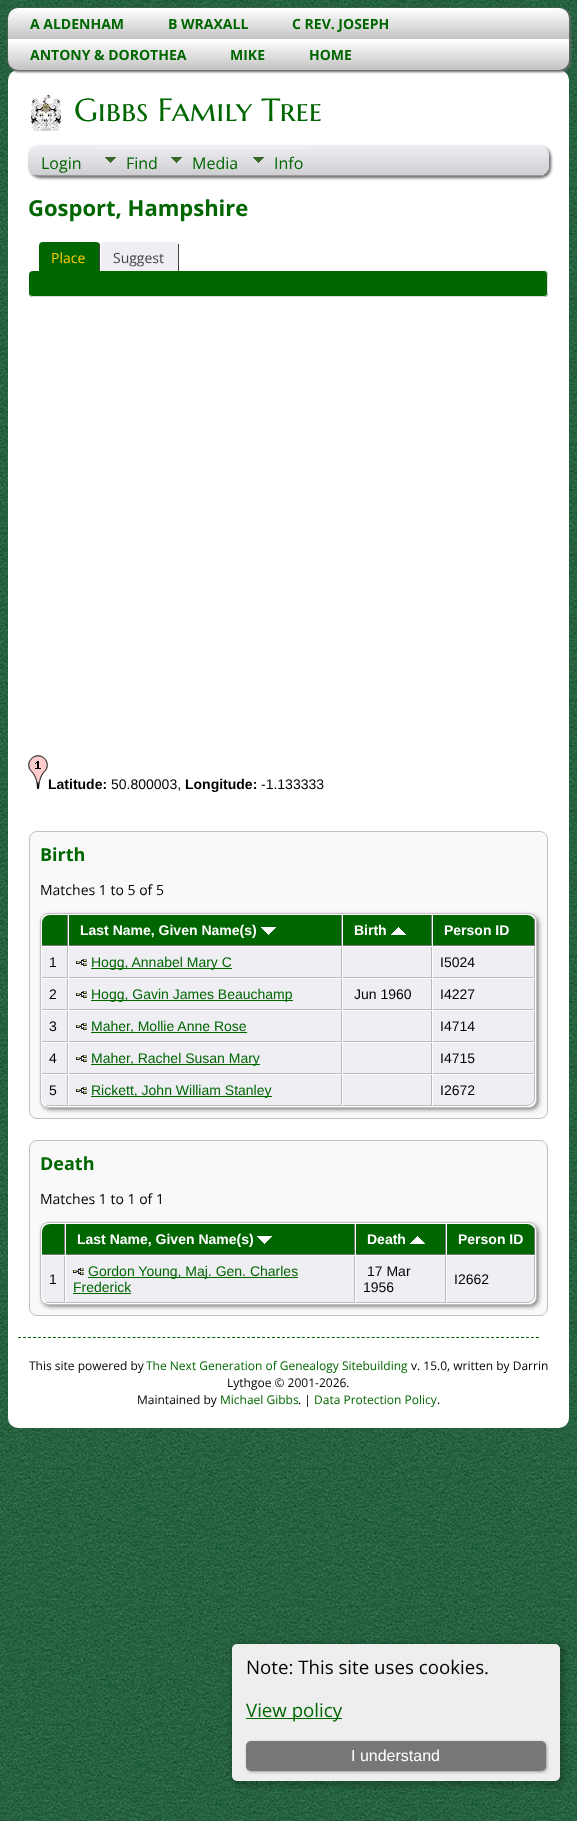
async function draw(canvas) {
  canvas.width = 577;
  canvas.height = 1821;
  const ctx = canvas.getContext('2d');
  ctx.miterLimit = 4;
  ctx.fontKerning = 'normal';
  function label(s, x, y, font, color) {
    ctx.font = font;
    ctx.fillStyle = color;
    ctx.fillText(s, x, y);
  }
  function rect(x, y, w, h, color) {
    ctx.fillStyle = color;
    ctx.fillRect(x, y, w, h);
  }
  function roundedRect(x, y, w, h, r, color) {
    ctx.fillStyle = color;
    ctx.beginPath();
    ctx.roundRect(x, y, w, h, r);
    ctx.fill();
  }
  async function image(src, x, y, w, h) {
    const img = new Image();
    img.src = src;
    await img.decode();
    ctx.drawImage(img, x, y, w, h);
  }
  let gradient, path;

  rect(0, 0, 577, 1821, '#fff');
  await image('assets/img1.png', 0, 0, 577, 1821);
  roundedRect(8, 70, 561, 1358, 10, '#fff');
  ctx.fillStyle = '#666';
  ctx.filter = 'blur(1px)';
  ctx.beginPath();
  ctx.roundRect(8, 8, 563, 64, 11);
  ctx.fill();
  ctx.filter = 'none';
  await image('assets/img2.png', 8, 8, 561, 62);
  label('A ALDENHAM', 30, 29, 'bold 14px Open Sans', '#060');
  label('B WRAXALL', 168, 29, 'bold 14px Open Sans', '#060');
  label('C REV. JOSEPH', 292, 29, 'bold 14px Open Sans', '#060');
  label('ANTONY & DOROTHEA', 30, 60, 'bold 14px Open Sans', '#060');
  label('MIKE', 230, 60, 'bold 14px Open Sans', '#060');
  label('HOME', 309, 60, 'bold 14px Open Sans', '#060');
  await image('assets/img3.png', 31, 95, 30, 36);
  label('Gibbs Family Tree', 74, 121, '32px Marcellus SC', '#060');
  ctx.fillStyle = '#666';
  ctx.filter = 'blur(1.5px)';
  ctx.beginPath();
  ctx.roundRect(30, 147, 521, 31, 10);
  ctx.fill();
  ctx.filter = 'none';
  roundedRect(28, 145, 521, 31, 10, '#eeeef3');
  ctx.save();
  ctx.beginPath();
  ctx.roundRect(28, 145, 521, 31, 10);
  ctx.clip();
  gradient = ctx.createLinearGradient(289, 145, 289, 175);
  gradient.addColorStop(0, '#eeeef3');
  gradient.addColorStop(1, '#ceced3');
  ctx.fillStyle = gradient;
  ctx.beginPath();
  ctx.roundRect(28, 145, 521, 30, [10, 10, 0, 0]);
  ctx.fill();
  ctx.restore();
  rect(33, 175, 511, 1, '#999');
  label('Login', 41, 169, '16px Open Sans', '#060');
  rect(96, 147, 212, 2, '#eeeef3');
  await image('assets/img4.png', 96, 149, 66, 26);
  label('Find', 126, 169, '16px Open Sans', '#060');
  await image('assets/img5.png', 162, 149, 82, 26);
  label('Media', 192, 169, '16px Open Sans', '#060');
  await image('assets/img6.png', 244, 149, 64, 26);
  label('Info', 274, 169, '16px Open Sans', '#060');
  label('Gosport, Hampshire', 28, 216, 'bold 22px Open Sans', '#060');
  ctx.beginPath();
  ctx.roundRect(39, 242, 61, 29, [4, 4, 0, 0]);
  ctx.fill();
  rect(99, 244, 1, 27, '#444');
  label('Place', 51, 263, '14px Open Sans', '#fc0');
  ctx.fillStyle = '#eeeef3';
  ctx.beginPath();
  ctx.roundRect(101, 242, 78, 29, [4, 4, 0, 0]);
  ctx.fill();
  rect(178, 244, 1, 27, '#444');
  label('Suggest', 113, 263, '14px Open Sans', '#444');
  roundedRect(29, 271, 519, 26, 4, '#060');
  ctx.fillStyle = '#ddd';
  path = new Path2D('M33 271H544C546 271 548 273 548 275V293C548 295 546 297 544 297H33C31 297 29 295 29 293V275C29 273 31 271 33 271ZM33 271H544C546 271 547 273 547 275V293C547 295 546 296 544 296H33C31 296 29 295 29 293V275C29 273 31 271 33 271Z');
  ctx.fill(path, 'evenodd');
  await image('assets/img7.png', 28, 755, 20, 34);
  label('Latitude:', 48, 789, 'bold 14px Liberation Sans', '#000');
  label('50.800003,', 111, 789, '14px Liberation Sans', '#000');
  label('Longitude:', 185, 789, 'bold 14px Liberation Sans', '#000');
  label('-1.133333', 261, 789, '14px Liberation Sans', '#000');
  ctx.fillStyle = '#f9f9f9';
  ctx.beginPath();
  ctx.roundRect(29.5, 831.5, 518, 287, 7.5);
  ctx.fill();
  ctx.strokeStyle = '#c0c0c0';
  ctx.stroke();
  label('Birth', 40, 861, 'bold 18px Open Sans', '#060');
  label('Matches 1 to 5 of 5', 40, 895, '14px Open Sans', '#000');
  ctx.fillStyle = '#666';
  ctx.filter = 'blur(2.5px)';
  ctx.beginPath();
  ctx.roundRect(43, 916, 495, 193, 7);
  ctx.fill();
  ctx.filter = 'none';
  ctx.fillStyle = '#fff';
  ctx.beginPath();
  ctx.roundRect(40.5, 913.5, 496, 194, 7.5);
  ctx.fill();
  ctx.stroke();
  ctx.fillStyle = '#060';
  ctx.beginPath();
  ctx.roundRect(42, 915, 26, 31, [8, 0, 0, 0]);
  ctx.fill();
  rect(67, 915, 1, 31, '#777');
  rect(42, 945, 26, 1, '#777');
  rect(69, 915, 272, 30, '#060');
  rect(341, 915, 1, 31, '#777');
  rect(69, 945, 273, 1, '#777');
  label('Last Name, Given Name(s)', 80, 935, 'bold 14px Liberation Sans', '#fff');
  await image('assets/img8.png', 261, 927, 15, 8);
  rect(343, 915, 88, 30, '#060');
  rect(431, 915, 1, 31, '#777');
  rect(343, 945, 89, 1, '#777');
  label('Birth', 354, 935, 'bold 14px Liberation Sans', '#fff');
  await image('assets/img9.png', 391, 927, 15, 8);
  ctx.fillStyle = '#060';
  ctx.beginPath();
  ctx.roundRect(433, 915, 102, 31, [0, 8, 0, 0]);
  ctx.fill();
  rect(534, 919, 1, 27, '#777');
  rect(433, 945, 102, 1, '#777');
  label('Person ID', 444, 935, 'bold 14px Liberation Sans', '#fff');
  rect(42, 947, 25, 30, '#eeeef3');
  rect(67, 947, 1, 31, '#bbb');
  rect(42, 977, 26, 1, '#bbb');
  label('1', 49, 967, '14px Liberation Sans', '#000');
  rect(69, 947, 272, 30, '#eeeef3');
  rect(341, 947, 1, 31, '#bbb');
  rect(69, 977, 273, 1, '#bbb');
  await image('assets/img10.png', 76, 959, 11, 7);
  rect(91, 968, 141, 1, '#060');
  label('Hogg, Annabel Mary C', 91, 967, '14px Liberation Sans', '#060');
  rect(343, 947, 88, 30, '#eeeef3');
  rect(431, 947, 1, 31, '#bbb');
  rect(343, 977, 89, 1, '#bbb');
  rect(433, 947, 101, 30, '#eeeef3');
  rect(534, 947, 1, 31, '#bbb');
  rect(433, 977, 102, 1, '#bbb');
  label('I5024', 440, 967, '14px Liberation Sans', '#000');
  rect(42, 979, 25, 30, '#eeeef3');
  rect(67, 979, 1, 31, '#bbb');
  rect(42, 1009, 26, 1, '#bbb');
  label('2', 49, 999, '14px Liberation Sans', '#000');
  rect(69, 979, 272, 30, '#eeeef3');
  rect(341, 979, 1, 31, '#bbb');
  rect(69, 1009, 273, 1, '#bbb');
  await image('assets/img10.png', 76, 991, 11, 7);
  rect(91, 1000, 202, 1, '#060');
  label('Hogg, Gavin James Beauchamp', 91, 999, '14px Liberation Sans', '#060');
  rect(343, 979, 88, 30, '#eeeef3');
  rect(431, 979, 1, 31, '#bbb');
  rect(343, 1009, 89, 1, '#bbb');
  label('Jun 1960', 354, 999, '14px Liberation Sans', '#000');
  rect(433, 979, 101, 30, '#eeeef3');
  rect(534, 979, 1, 31, '#bbb');
  rect(433, 1009, 102, 1, '#bbb');
  label('I4227', 440, 999, '14px Liberation Sans', '#000');
  rect(42, 1011, 25, 30, '#eeeef3');
  rect(67, 1011, 1, 31, '#bbb');
  rect(42, 1041, 26, 1, '#bbb');
  label('3', 49, 1031, '14px Liberation Sans', '#000');
  rect(69, 1011, 272, 30, '#eeeef3');
  rect(341, 1011, 1, 31, '#bbb');
  rect(69, 1041, 273, 1, '#bbb');
  await image('assets/img10.png', 76, 1023, 11, 7);
  rect(91, 1032, 156, 1, '#060');
  label('Maher, Mollie Anne Rose', 91, 1031, '14px Liberation Sans', '#060');
  rect(343, 1011, 88, 30, '#eeeef3');
  rect(431, 1011, 1, 31, '#bbb');
  rect(343, 1041, 89, 1, '#bbb');
  rect(433, 1011, 101, 30, '#eeeef3');
  rect(534, 1011, 1, 31, '#bbb');
  rect(433, 1041, 102, 1, '#bbb');
  label('I4714', 440, 1031, '14px Liberation Sans', '#000');
  rect(42, 1043, 25, 30, '#eeeef3');
  rect(67, 1043, 1, 31, '#bbb');
  rect(42, 1073, 26, 1, '#bbb');
  label('4', 49, 1063, '14px Liberation Sans', '#000');
  rect(69, 1043, 272, 30, '#eeeef3');
  rect(341, 1043, 1, 31, '#bbb');
  rect(69, 1073, 273, 1, '#bbb');
  await image('assets/img10.png', 76, 1055, 11, 7);
  rect(91, 1064, 169, 1, '#060');
  label('Maher, Rachel Susan Mary', 91, 1063, '14px Liberation Sans', '#060');
  rect(343, 1043, 88, 30, '#eeeef3');
  rect(431, 1043, 1, 31, '#bbb');
  rect(343, 1073, 89, 1, '#bbb');
  rect(433, 1043, 101, 30, '#eeeef3');
  rect(534, 1043, 1, 31, '#bbb');
  rect(433, 1073, 102, 1, '#bbb');
  label('I4715', 440, 1063, '14px Liberation Sans', '#000');
  ctx.fillStyle = '#eeeef3';
  ctx.beginPath();
  ctx.roundRect(42, 1075, 26, 31, [0, 0, 0, 8]);
  ctx.fill();
  rect(67, 1075, 1, 31, '#bbb');
  rect(46, 1105, 22, 1, '#bbb');
  label('5', 49, 1095, '14px Liberation Sans', '#000');
  rect(69, 1075, 272, 30, '#eeeef3');
  rect(341, 1075, 1, 31, '#bbb');
  rect(69, 1105, 273, 1, '#bbb');
  await image('assets/img10.png', 76, 1087, 11, 7);
  rect(91, 1096, 181, 1, '#060');
  label('Rickett, John William Stanley', 91, 1095, '14px Liberation Sans', '#060');
  rect(343, 1075, 88, 30, '#eeeef3');
  rect(431, 1075, 1, 31, '#bbb');
  rect(343, 1105, 89, 1, '#bbb');
  ctx.fillStyle = '#eeeef3';
  ctx.beginPath();
  ctx.roundRect(433, 1075, 102, 31, [0, 0, 8, 0]);
  ctx.fill();
  ctx.fillStyle = '#bbb';
  path = new Path2D('M433 1075H535V1098C535 1102 531 1106 527 1106H433ZM433 1075H534V1098C534 1102 531 1105 527 1105H433Z');
  ctx.fill(path, 'evenodd');
  label('I2672', 440, 1095, '14px Liberation Sans', '#000');
  ctx.fillStyle = '#f9f9f9';
  ctx.beginPath();
  ctx.roundRect(29.5, 1140.5, 518, 175, 7.5);
  ctx.fill();
  ctx.stroke();
  label('Death', 40, 1170, 'bold 18px Open Sans', '#060');
  label('Matches 1 to 1 of 1', 40, 1204, '14px Open Sans', '#000');
  ctx.fillStyle = '#666';
  ctx.filter = 'blur(2.5px)';
  ctx.beginPath();
  ctx.roundRect(43, 1225, 495, 81, 7);
  ctx.fill();
  ctx.filter = 'none';
  ctx.fillStyle = '#fff';
  ctx.beginPath();
  ctx.roundRect(40.5, 1222.5, 496, 82, 7.5);
  ctx.fill();
  ctx.stroke();
  ctx.fillStyle = '#060';
  ctx.beginPath();
  ctx.roundRect(42, 1224, 23, 31, [8, 0, 0, 0]);
  ctx.fill();
  rect(64, 1224, 1, 31, '#777');
  rect(42, 1254, 23, 1, '#777');
  rect(66, 1224, 288, 30, '#060');
  rect(354, 1224, 1, 31, '#777');
  rect(66, 1254, 289, 1, '#777');
  label('Last Name, Given Name(s)', 77, 1244, 'bold 14px Liberation Sans', '#fff');
  await image('assets/img8.png', 257, 1236, 15, 8);
  rect(356, 1224, 89, 30, '#060');
  rect(445, 1224, 1, 31, '#777');
  rect(356, 1254, 90, 1, '#777');
  label('Death', 367, 1244, 'bold 14px Liberation Sans', '#fff');
  await image('assets/img9.png', 410, 1236, 15, 8);
  ctx.fillStyle = '#060';
  ctx.beginPath();
  ctx.roundRect(447, 1224, 88, 31, [0, 8, 0, 0]);
  ctx.fill();
  rect(534, 1228, 1, 27, '#777');
  rect(447, 1254, 88, 1, '#777');
  label('Person ID', 458, 1244, 'bold 14px Liberation Sans', '#fff');
  ctx.fillStyle = '#eeeef3';
  ctx.beginPath();
  ctx.roundRect(42, 1256, 23, 47, [0, 0, 0, 8]);
  ctx.fill();
  rect(64, 1256, 1, 47, '#bbb');
  rect(46, 1302, 19, 1, '#bbb');
  label('1', 49, 1284, '14px Liberation Sans', '#000');
  rect(66, 1256, 288, 46, '#eeeef3');
  rect(354, 1256, 1, 47, '#bbb');
  rect(66, 1302, 289, 1, '#bbb');
  await image('assets/img10.png', 73, 1268, 11, 7);
  rect(88, 1277, 210, 1, '#060');
  label('Gordon Young, Maj. Gen. Charles', 88, 1276, '14px Liberation Sans', '#060');
  label('Frederick', 73, 1292, '14px Liberation Sans', '#060');
  rect(73, 1293, 58, 1, '#060');
  rect(356, 1256, 89, 46, '#eeeef3');
  rect(445, 1256, 1, 47, '#bbb');
  rect(356, 1302, 90, 1, '#bbb');
  label('17 Mar', 367, 1276, '14px Liberation Sans', '#000');
  label('1956', 363, 1292, '14px Liberation Sans', '#000');
  ctx.fillStyle = '#eeeef3';
  ctx.beginPath();
  ctx.roundRect(447, 1256, 88, 47, [0, 0, 8, 0]);
  ctx.fill();
  ctx.fillStyle = '#bbb';
  path = new Path2D('M447 1256H535V1295C535 1299 531 1303 527 1303H447ZM447 1256H534V1295C534 1299 531 1302 527 1302H447Z');
  ctx.fill(path, 'evenodd');
  label('I2662', 454, 1284, '14px Liberation Sans', '#000');
  ctx.fillStyle = '#00000033';
  ctx.filter = 'blur(2px)';
  ctx.beginPath();
  ctx.roundRect(231, 1643, 334, 143, 8);
  ctx.fill();
  ctx.filter = 'none';
  roundedRect(232, 1644, 328, 137, 5, '#eee');
  label('Note: This site uses cookies.', 246, 1674, '18.7px Open Sans', '#000');
  rect(246, 1718, 96, 1, '#060');
  label('View policy', 246, 1717, '18.7px Open Sans', '#060');
  ctx.fillStyle = '#999';
  ctx.filter = 'blur(1.5px)';
  ctx.beginPath();
  ctx.roundRect(247, 1742, 300, 30, 5);
  ctx.fill();
  ctx.filter = 'none';
  roundedRect(246, 1741, 300, 30, 5, '#777');
  label('I understand', 351, 1761, '16px Liberation Sans', '#fff');
  path = new Path2D('M18 1337.5H539');
  ctx.strokeStyle = '#060';
  ctx.setLineDash([3, 1.98]);
  ctx.stroke(path);
  label('This site powered by', 29, 1370, '12px Open Sans', '#000');
  label('The Next Generation of Genealogy Sitebuilding', 146, 1370, '12px Open Sans', '#060');
  label('v. 15.0, written by Darrin', 411, 1370, '12px Open Sans', '#000');
  label('Lythgoe © 2001-2026.', 227, 1387, '12px Open Sans', '#000');
  label('Maintained by', 137, 1404, '12px Open Sans', '#000');
  label('Michael Gibbs', 220, 1404, '12px Open Sans', '#060');
  label('. |', 298, 1404, '12px Open Sans', '#000');
  label('Data Protection Policy', 314, 1404, '12px Open Sans', '#060');
  label('.', 437, 1404, '12px Open Sans', '#000');
}

draw(document.querySelector('canvas'));
